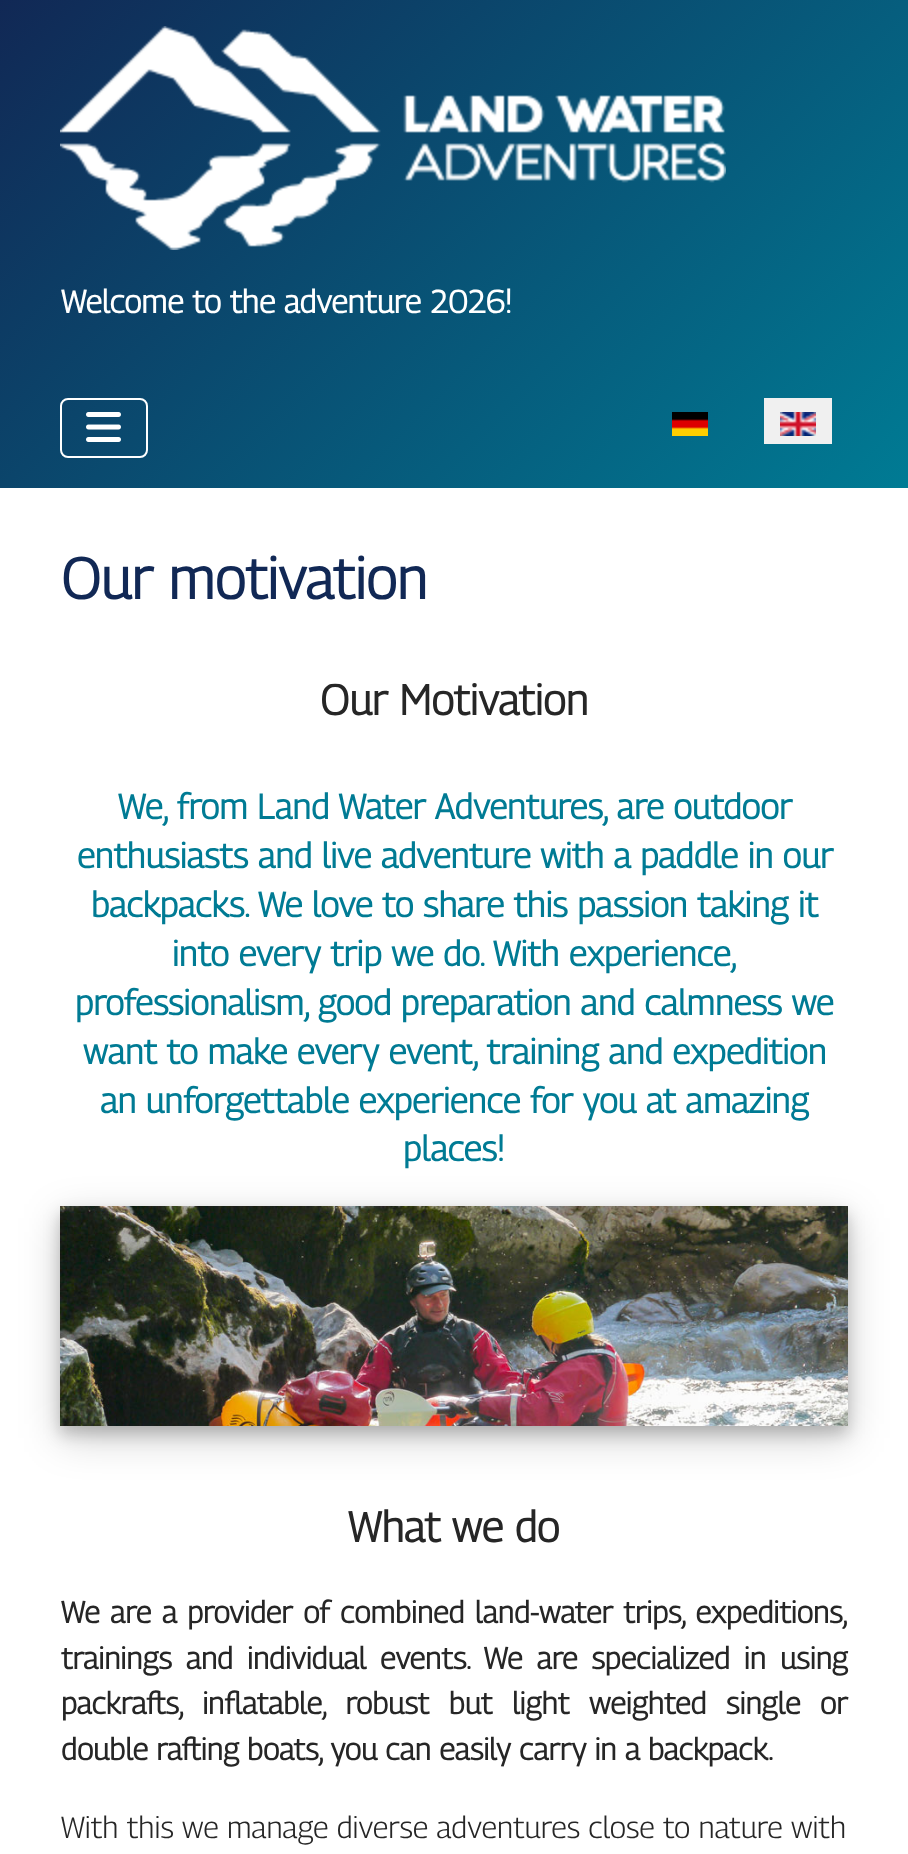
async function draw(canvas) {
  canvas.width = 908;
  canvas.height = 1854;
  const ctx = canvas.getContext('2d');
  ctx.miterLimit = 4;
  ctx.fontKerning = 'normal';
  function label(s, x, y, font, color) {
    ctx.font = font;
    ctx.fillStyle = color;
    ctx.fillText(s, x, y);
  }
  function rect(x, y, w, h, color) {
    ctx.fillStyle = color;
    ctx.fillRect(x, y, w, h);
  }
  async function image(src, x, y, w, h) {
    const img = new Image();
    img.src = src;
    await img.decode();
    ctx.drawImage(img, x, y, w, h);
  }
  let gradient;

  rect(0, 0, 908, 1854, '#fff');
  gradient = ctx.createLinearGradient(105, -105, 803, 593);
  gradient.addColorStop(0, '#112855');
  gradient.addColorStop(1, '#007b94');
  ctx.fillStyle = gradient;
  ctx.fillRect(0, 0, 908, 488);
  await image('assets/img1.png', 60, 26, 666, 224);
  label('Welcome to the adventure 2026!', 61, 313, 'bold 32px Georama', '#fff');
  ctx.beginPath();
  ctx.roundRect(61, 399, 86, 58, 7);
  ctx.strokeStyle = '#fff';
  ctx.lineWidth = 2;
  ctx.stroke();
  await image('assets/img2.png', 86, 412, 35, 30);
  await image('assets/img3.png', 672, 412, 36, 24);
  rect(764, 398, 68, 46, '#f0f0f0');
  await image('assets/img4.png', 780, 412, 36, 24);
  label('Our motivation', 61, 599, 'bold 57.5px Georama', '#112855');
  label('Our Motivation', 320, 715, 'bold 42.5px Georama', '#262626');
  label('We, from Land Water Adventures, are outdoor', 118, 819, 'bold 35px Georama', '#007b94');
  label('enthusiasts and live adventure with a paddle in our', 77, 868, 'bold 35px Georama', '#007b94');
  label('backpacks. We love to share this passion taking it', 91, 917, 'bold 35px Georama', '#007b94');
  label('into every trip we do. With experience,', 172, 966, 'bold 35px Georama', '#007b94');
  label('professionalism, good preparation and calmness we', 75, 1015, 'bold 35px Georama', '#007b94');
  label('want to make every event, training and expedition', 83, 1064, 'bold 35px Georama', '#007b94');
  label('an unforgettable experience for you at amazing', 100, 1113, 'bold 35px Georama', '#007b94');
  label('places!', 403, 1161, 'bold 35px Georama', '#007b94');
  ctx.fillStyle = '#00000030';
  ctx.filter = 'blur(20px)';
  ctx.beginPath();
  ctx.rect(60, 1218, 788, 220);
  ctx.fill();
  ctx.filter = 'none';
  ctx.fillStyle = '#00000033';
  ctx.filter = 'blur(8px)';
  ctx.beginPath();
  ctx.rect(60, 1214, 788, 220);
  ctx.fill();
  ctx.filter = 'none';
  await image('assets/img5.png', 60, 1206, 788, 220);
  label('What we do', 348, 1542, 'bold 42.5px Georama', '#262626');
  ctx.wordSpacing = '2.25px';
  label('We are a provider of combined land-water trips, expeditions,', 61, 1623, 'bold 30.4px Georama', '#262626');
  ctx.wordSpacing = '5.75px';
  label('trainings and individual events. We are specialized in using', 61, 1669, 'bold 30.4px Georama', '#262626');
  ctx.wordSpacing = '11.5px';
  label('packrafts, inflatable, robust but light weighted single or', 61, 1714, 'bold 30.4px Georama', '#262626');
  ctx.wordSpacing = '0px';
  label('double rafting boats, you can easily carry in a backpack.', 61, 1760, 'bold 30.4px Georama', '#262626');
  label('With this we manage diverse adventures close to nature with', 61, 1838, '300 30.4px Georama', '#262626');
}

draw(document.querySelector('canvas'));
